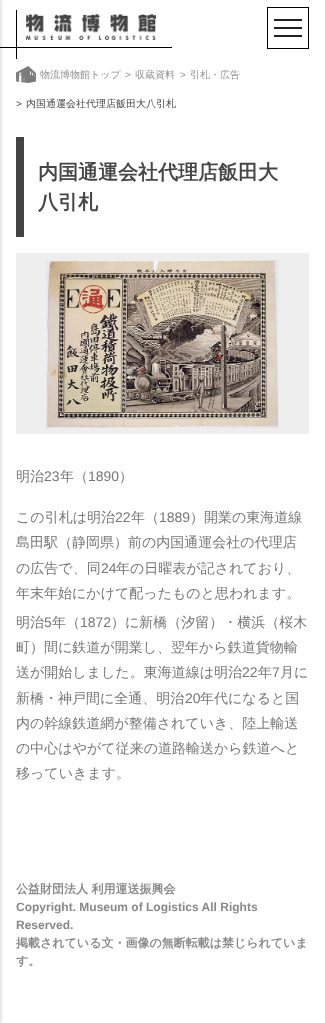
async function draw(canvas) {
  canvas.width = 325;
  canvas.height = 1023;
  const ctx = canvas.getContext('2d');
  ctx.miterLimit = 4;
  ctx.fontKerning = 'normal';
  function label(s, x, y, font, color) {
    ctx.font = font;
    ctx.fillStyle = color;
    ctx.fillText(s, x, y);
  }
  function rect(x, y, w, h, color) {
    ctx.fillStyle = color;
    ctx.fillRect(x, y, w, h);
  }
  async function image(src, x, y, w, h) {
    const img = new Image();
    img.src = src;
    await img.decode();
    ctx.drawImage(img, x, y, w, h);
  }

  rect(0, 0, 325, 1023, '#fff');
  rect(0, 47, 172, 1, '#000');
  rect(16, 10, 1, 49, '#000');
  await image('assets/img1.png', 26, 14, 130, 26);
  ctx.strokeStyle = '#000';
  ctx.strokeRect(267.5, 7.5, 41, 41);
  rect(274, 27, 28, 2, '#222');
  rect(274, 19, 28, 2, '#222');
  rect(274, 35, 28, 2, '#222');
  ctx.fillStyle = '#0000001a';
  ctx.filter = 'blur(1px)';
  ctx.beginPath();
  ctx.rect(-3, 0, 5, 1023);
  ctx.fill();
  ctx.filter = 'none';
  await image('assets/img2.png', 16, 66, 20, 17);
  label('物流博物館トップ', 40, 78, '500 10px WenQuanYi Zen Hei', '#929292');
  label('>', 125, 78, '10px Liberation Sans', '#929292');
  label('収蔵資料', 135, 78, '500 10px WenQuanYi Zen Hei', '#929292');
  label('>', 180, 78, '10px Liberation Sans', '#929292');
  label('引札・広告', 190, 78, '500 10px WenQuanYi Zen Hei', '#929292');
  label('>', 16, 107, '10px Liberation Sans', '#464646');
  label('内国通運会社代理店飯田大八引札', 26, 107, '500 10px WenQuanYi Zen Hei', '#464646');
  rect(16, 137, 8, 100, '#444');
  label('内国通運会社代理店飯田大', 38, 179, 'bold 20px WenQuanYi Zen Hei', '#464646');
  label('八引札', 38, 209, 'bold 20px WenQuanYi Zen Hei', '#464646');
  await image('assets/img3.png', 16, 253, 293, 181);
  label('明治', 16, 481, '500 14px WenQuanYi Zen Hei', '#777');
  label('23', 44, 481, '14px Liberation Sans', '#777');
  label('年（', 60, 481, '500 14px WenQuanYi Zen Hei', '#777');
  label('1890', 88, 481, '14px Liberation Sans', '#777');
  label('）', 119, 481, '500 14px WenQuanYi Zen Hei', '#777');
  label('この引札は明治', 16, 522, '500 14px WenQuanYi Zen Hei', '#777');
  label('22', 115, 522, '14px Liberation Sans', '#777');
  label('年（', 131, 522, '500 14px WenQuanYi Zen Hei', '#777');
  label('1889', 159, 522, '14px Liberation Sans', '#777');
  label('）開業の東海道線', 190, 522, '500 14px WenQuanYi Zen Hei', '#777');
  label('島田駅（静岡県）前の内国通運会社の代理店', 16, 547, '500 14px WenQuanYi Zen Hei', '#777');
  label('の広告で、同', 16, 573, '500 14px WenQuanYi Zen Hei', '#777');
  label('24', 101, 573, '14px Liberation Sans', '#777');
  label('年の日曜表が記されており、', 116, 573, '500 14px WenQuanYi Zen Hei', '#777');
  label('年末年始にかけて配ったものと思われます。', 16, 598, '500 14px WenQuanYi Zen Hei', '#777');
  label('明治', 16, 627, '500 14px WenQuanYi Zen Hei', '#777');
  label('5', 44, 627, '14px Liberation Sans', '#777');
  label('年（', 52, 627, '500 14px WenQuanYi Zen Hei', '#777');
  label('1872', 80, 627, '14px Liberation Sans', '#777');
  label('）に新橋（汐留）・横浜（桜木', 111, 627, '500 14px WenQuanYi Zen Hei', '#777');
  label('町）間に鉄道が開業し、翌年から鉄道貨物輸', 16, 652, '500 14px WenQuanYi Zen Hei', '#777');
  label('送が開始しました。東海道線は明治', 16, 677, '500 14px WenQuanYi Zen Hei', '#777');
  label('22', 242, 677, '14px Liberation Sans', '#777');
  label('年', 258, 677, '500 14px WenQuanYi Zen Hei', '#777');
  label('7', 272, 677, '14px Liberation Sans', '#777');
  label('月に', 280, 677, '500 14px WenQuanYi Zen Hei', '#777');
  label('新橋・神戸間に全通、明治', 16, 703, '500 14px WenQuanYi Zen Hei', '#777');
  label('20', 185, 703, '14px Liberation Sans', '#777');
  label('年代になると国', 200, 703, '500 14px WenQuanYi Zen Hei', '#777');
  label('内の幹線鉄道網が整備されていき、陸上輸送', 16, 728, '500 14px WenQuanYi Zen Hei', '#777');
  label('の中心はやがて従来の道路輸送から鉄道へと', 16, 753, '500 14px WenQuanYi Zen Hei', '#777');
  label('移っていきます。', 16, 778, '500 14px WenQuanYi Zen Hei', '#777');
  label('公益財団法人 利用運送振興会', 16, 893, 'bold 12px WenQuanYi Zen Hei', '#888');
  label('Copyright. Museum of Logistics All Rights', 16, 911, 'bold 12px Liberation Sans', '#888');
  label('Reserved.', 16, 929, 'bold 12px Liberation Sans', '#888');
  label('掲載されている文・画像の無断転載は禁じられていま', 16, 947, 'bold 12px WenQuanYi Zen Hei', '#888');
  label('す。', 16, 965, 'bold 12px WenQuanYi Zen Hei', '#888');
}

draw(document.querySelector('canvas'));
